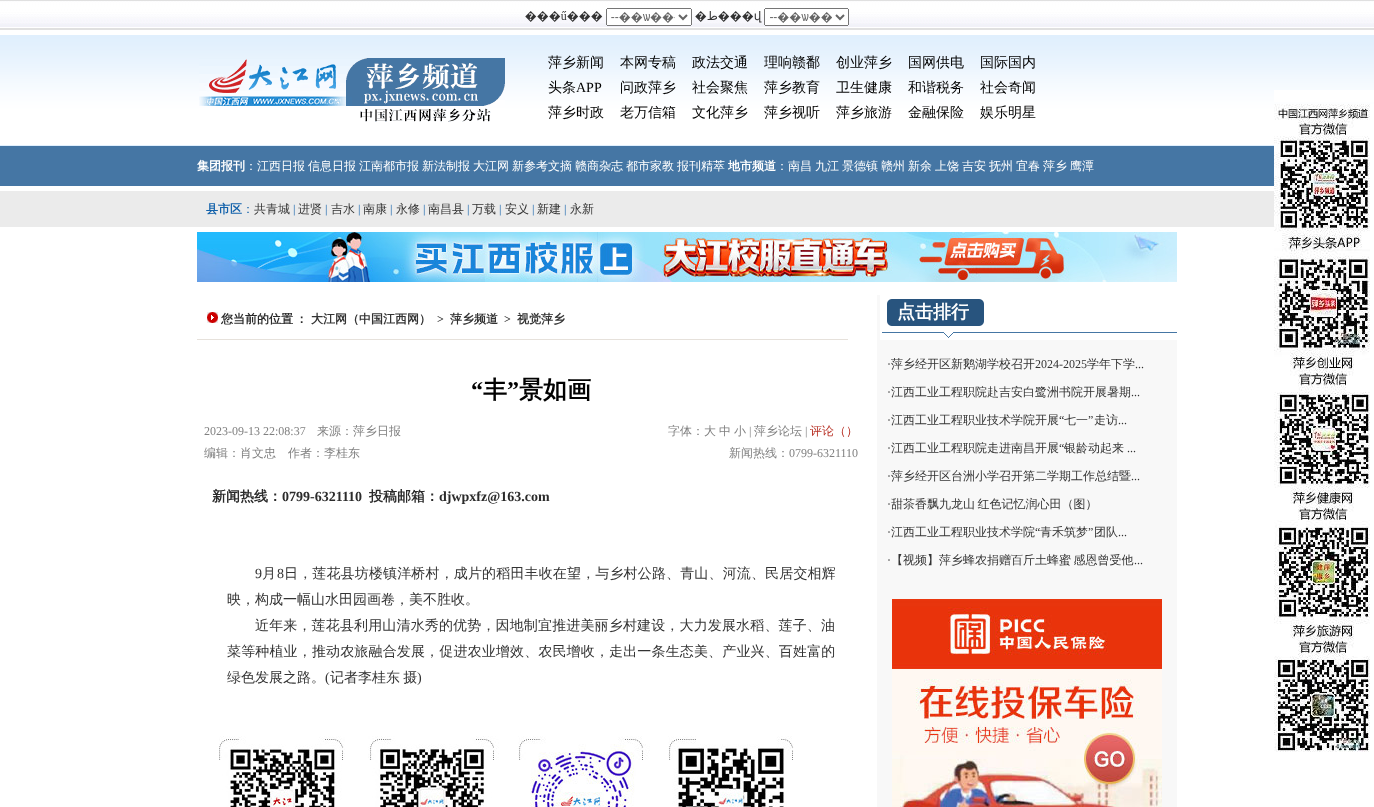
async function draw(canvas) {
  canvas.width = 1374;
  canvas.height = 807;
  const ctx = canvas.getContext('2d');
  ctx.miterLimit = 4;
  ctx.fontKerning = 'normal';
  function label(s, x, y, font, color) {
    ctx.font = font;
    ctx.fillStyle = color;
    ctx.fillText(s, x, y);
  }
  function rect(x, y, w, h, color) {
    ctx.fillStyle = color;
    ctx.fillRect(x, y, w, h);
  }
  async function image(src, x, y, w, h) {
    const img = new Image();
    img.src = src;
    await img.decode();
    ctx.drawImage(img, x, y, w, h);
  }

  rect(0, 0, 1374, 807, '#fff');
  await image('assets/img1.png', 0, 0, 1374, 30);
  await image('assets/img2.png', 0, 35, 1374, 111);
  await image('assets/img3.png', 199, 58, 306, 64);
  label('萍乡新闻', 548, 67, '500 14px WenQuanYi Zen Hei', '#010101');
  label('头条', 548, 92, '500 14px WenQuanYi Zen Hei', '#010101');
  label('APP', 576, 92, '14px Liberation Serif', '#010101');
  label('萍乡时政', 548, 117, '500 14px WenQuanYi Zen Hei', '#010101');
  label('本网专稿', 620, 67, '500 14px WenQuanYi Zen Hei', '#010101');
  label('问政萍乡', 620, 92, '500 14px WenQuanYi Zen Hei', '#010101');
  label('老万信箱', 620, 117, '500 14px WenQuanYi Zen Hei', '#010101');
  label('政法交通', 692, 67, '500 14px WenQuanYi Zen Hei', '#010101');
  label('社会聚焦', 692, 92, '500 14px WenQuanYi Zen Hei', '#010101');
  label('文化萍乡', 692, 117, '500 14px WenQuanYi Zen Hei', '#010101');
  label('理响赣鄱', 764, 67, '500 14px WenQuanYi Zen Hei', '#010101');
  label('萍乡教育', 764, 92, '500 14px WenQuanYi Zen Hei', '#010101');
  label('萍乡视听', 764, 117, '500 14px WenQuanYi Zen Hei', '#010101');
  label('创业萍乡', 836, 67, '500 14px WenQuanYi Zen Hei', '#010101');
  label('卫生健康', 836, 92, '500 14px WenQuanYi Zen Hei', '#010101');
  label('萍乡旅游', 836, 117, '500 14px WenQuanYi Zen Hei', '#010101');
  label('国网供电', 908, 67, '500 14px WenQuanYi Zen Hei', '#010101');
  label('和谐税务', 908, 92, '500 14px WenQuanYi Zen Hei', '#010101');
  label('金融保险', 908, 117, '500 14px WenQuanYi Zen Hei', '#010101');
  label('国际国内', 980, 67, '500 14px WenQuanYi Zen Hei', '#010101');
  label('社会奇闻', 980, 92, '500 14px WenQuanYi Zen Hei', '#010101');
  label('娱乐明星', 980, 117, '500 14px WenQuanYi Zen Hei', '#010101');
  rect(1274, 90, 100, 12, '#fff');
  await image('assets/img4.png', 1274, 104, 100, 648);
  rect(0, 146, 1274, 40, '#4576a4');
  label('集团报刊', 197, 170, 'bold 12px WenQuanYi Zen Hei', '#fff');
  label('：江西日报', 245, 170, '500 12px WenQuanYi Zen Hei', '#fff');
  label('信息日报', 308, 170, '500 12px WenQuanYi Zen Hei', '#fff');
  label('江南都市报', 359, 170, '500 12px WenQuanYi Zen Hei', '#fff');
  label('新法制报', 422, 170, '500 12px WenQuanYi Zen Hei', '#fff');
  label('大江网', 473, 170, '500 12px WenQuanYi Zen Hei', '#fff');
  label('新参考文摘', 512, 170, '500 12px WenQuanYi Zen Hei', '#fff');
  label('赣商杂志', 575, 170, '500 12px WenQuanYi Zen Hei', '#fff');
  label('都市家教', 626, 170, '500 12px WenQuanYi Zen Hei', '#fff');
  label('报刊精萃', 677, 170, '500 12px WenQuanYi Zen Hei', '#fff');
  label('地市频道', 728, 170, 'bold 12px WenQuanYi Zen Hei', '#fff');
  label('：南昌', 776, 170, '500 12px WenQuanYi Zen Hei', '#fff');
  label('九江', 815, 170, '500 12px WenQuanYi Zen Hei', '#fff');
  label('景德镇', 842, 170, '500 12px WenQuanYi Zen Hei', '#fff');
  label('赣州', 881, 170, '500 12px WenQuanYi Zen Hei', '#fff');
  label('新余', 908, 170, '500 12px WenQuanYi Zen Hei', '#fff');
  label('上饶', 935, 170, '500 12px WenQuanYi Zen Hei', '#fff');
  label('吉安', 962, 170, '500 12px WenQuanYi Zen Hei', '#fff');
  label('抚州', 989, 170, '500 12px WenQuanYi Zen Hei', '#fff');
  label('宜春', 1016, 170, '500 12px WenQuanYi Zen Hei', '#fff');
  label('萍乡', 1043, 170, '500 12px WenQuanYi Zen Hei', '#fff');
  label('鹰潭', 1070, 170, '500 12px WenQuanYi Zen Hei', '#fff');
  rect(0, 191, 1274, 36, '#ebebeb');
  label('县市区', 206, 213, 'bold 12px WenQuanYi Zen Hei', '#1362ab');
  label('：', 242, 213, '500 12px WenQuanYi Zen Hei', '#1362ab');
  label('共青城', 254, 213, '500 12px WenQuanYi Zen Hei', '#333');
  label('|', 293, 213, '12px Liberation Serif', '#1362ab');
  label('进贤', 298, 213, '500 12px WenQuanYi Zen Hei', '#333');
  label('|', 325, 213, '12px Liberation Serif', '#1362ab');
  label('吉水', 331, 213, '500 12px WenQuanYi Zen Hei', '#333');
  label('|', 358, 213, '12px Liberation Serif', '#1362ab');
  label('南康', 363, 213, '500 12px WenQuanYi Zen Hei', '#333');
  label('|', 390, 213, '12px Liberation Serif', '#1362ab');
  label('永修', 396, 213, '500 12px WenQuanYi Zen Hei', '#333');
  label('|', 423, 213, '12px Liberation Serif', '#1362ab');
  label('南昌县', 428, 213, '500 12px WenQuanYi Zen Hei', '#333');
  label('|', 467, 213, '12px Liberation Serif', '#1362ab');
  label('万载', 472, 213, '500 12px WenQuanYi Zen Hei', '#333');
  label('|', 499, 213, '12px Liberation Serif', '#1362ab');
  label('安义', 505, 213, '500 12px WenQuanYi Zen Hei', '#333');
  label('|', 532, 213, '12px Liberation Serif', '#1362ab');
  label('新建', 537, 213, '500 12px WenQuanYi Zen Hei', '#333');
  label('|', 564, 213, '12px Liberation Serif', '#1362ab');
  label('永新', 570, 213, '500 12px WenQuanYi Zen Hei', '#333');
  await image('assets/img5.png', 197, 232, 980, 50);
  rect(197, 339, 651, 1, '#e6e1db');
  await image('assets/img6.png', 207, 312, 11, 11);
  ctx.wordSpacing = '-1px';
  label('您当前的位置 ：', 221, 323, 'bold 12px WenQuanYi Zen Hei', '#2b2b2b');
  ctx.wordSpacing = '0px';
  label('大江网（中国江西网）', 311, 323, 'bold 12px WenQuanYi Zen Hei', '#333');
  label('>', 437, 323, 'bold 12px Liberation Serif', '#2b2b2b');
  label('萍乡频道', 450, 323, 'bold 12px WenQuanYi Zen Hei', '#333');
  label('>', 504, 323, 'bold 12px Liberation Serif', '#2b2b2b');
  label('视觉萍乡', 517, 323, 'bold 12px WenQuanYi Zen Hei', '#333');
  label('“', 471, 398, 'bold 24px Liberation Serif', '#010101');
  label('丰', 483, 398, 'bold 24px WenQuanYi Zen Hei', '#010101');
  label('”', 507, 398, 'bold 24px Liberation Serif', '#010101');
  label('景如画', 519, 398, 'bold 24px WenQuanYi Zen Hei', '#010101');
  label('2023-09-13 22:08:37', 204, 435, '12px Liberation Serif', '#808080');
  label('来源：萍乡日报', 317, 435, '500 12px WenQuanYi Zen Hei', '#808080');
  label('编辑：肖文忠', 204, 457, '500 12px WenQuanYi Zen Hei', '#808080');
  label('作者：李桂东', 288, 457, '500 12px WenQuanYi Zen Hei', '#808080');
  label('字体：大', 668, 435, '500 12px WenQuanYi Zen Hei', '#808080');
  label('中', 719, 435, '500 12px WenQuanYi Zen Hei', '#808080');
  label('小', 734, 435, '500 12px WenQuanYi Zen Hei', '#808080');
  label('|', 749, 435, '12px Liberation Serif', '#808080');
  label('萍乡论坛', 754, 435, '500 12px WenQuanYi Zen Hei', '#808080');
  label('|', 805, 435, '12px Liberation Serif', '#808080');
  label('评论（）', 810, 435, '500 12px WenQuanYi Zen Hei', '#b72e22');
  label('新闻热线：', 729, 457, '500 12px WenQuanYi Zen Hei', '#808080');
  label('0799-6321110', 789, 457, '12px Liberation Serif', '#808080');
  label('新闻热线：', 212, 501, 'bold 14px WenQuanYi Zen Hei', '#2b2b2b');
  label('0799-6321110', 282, 501, 'bold 14px Liberation Serif', '#2b2b2b');
  label('投稿邮箱：', 369, 501, 'bold 14px WenQuanYi Zen Hei', '#2b2b2b');
  label('djwpxfz@163.com', 439, 501, 'bold 14px Liberation Serif', '#2b2b2b');
  ctx.letterSpacing = '0.15px';
  label('9', 255, 578, '14px Liberation Serif', '#333');
  label('月', 262, 578, '500 14px WenQuanYi Zen Hei', '#333');
  label('8', 277, 578, '14px Liberation Serif', '#333');
  label('日，莲花县坊楼镇洋桥村，成片的稻田丰收在望，与乡村公路、青山、河流、民居交相辉', 284, 578, '500 14px WenQuanYi Zen Hei', '#333');
  ctx.letterSpacing = '0px';
  label('映，构成一幅山水田园画卷，美不胜收。', 227, 604, '500 14px WenQuanYi Zen Hei', '#333');
  ctx.letterSpacing = '0.15px';
  label('近年来，莲花县利用山清水秀的优势，因地制宜推进美丽乡村建设，大力发展水稻、莲子、油', 255, 630, '500 14px WenQuanYi Zen Hei', '#333');
  label('菜等种植业，推动农旅融合发展，促进农业增效、农民增收，走出一条生态美、产业兴、百姓富的', 227, 656, '500 14px WenQuanYi Zen Hei', '#333');
  ctx.letterSpacing = '0px';
  label('绿色发展之路。', 227, 682, '500 14px WenQuanYi Zen Hei', '#333');
  label('(', 325, 682, '14px Liberation Serif', '#333');
  ctx.wordSpacing = '-1px';
  label('记者李桂东 摄', 330, 682, '500 14px WenQuanYi Zen Hei', '#333');
  ctx.wordSpacing = '0px';
  label(')', 417, 682, '14px Liberation Serif', '#333');
  await image('assets/img7.png', 219, 736, 126, 71);
  await image('assets/img8.png', 368, 736, 131, 71);
  await image('assets/img9.png', 518, 736, 132, 71);
  await image('assets/img10.png', 668, 736, 126, 71);
  rect(877, 295, 300, 512, '#f8f8f8');
  await image('assets/img11.png', 880, 295, 297, 45);
  label('点击排行', 897, 318, 'bold 18px WenQuanYi Zen Hei', '#fff');
  label('·', 887, 368, '12px Liberation Serif', '#2b2b2b');
  label('萍乡经开区新鹅湖学校召开', 891, 368, '500 12px WenQuanYi Zen Hei', '#333');
  label('2024-2025', 1035, 368, '12px Liberation Serif', '#333');
  label('学年下学', 1087, 368, '500 12px WenQuanYi Zen Hei', '#333');
  label('...', 1135, 368, '12px Liberation Serif', '#333');
  label('·', 887, 396, '12px Liberation Serif', '#2b2b2b');
  label('江西工业工程职院赴吉安白鹭洲书院开展暑期', 891, 396, '500 12px WenQuanYi Zen Hei', '#333');
  label('...', 1131, 396, '12px Liberation Serif', '#333');
  label('·', 887, 424, '12px Liberation Serif', '#2b2b2b');
  label('江西工业工程职业技术学院开展', 891, 424, '500 12px WenQuanYi Zen Hei', '#333');
  label('“', 1059, 424, '12px Liberation Serif', '#333');
  label('七一', 1064, 424, '500 12px WenQuanYi Zen Hei', '#333');
  label('”', 1088, 424, '12px Liberation Serif', '#333');
  label('走访', 1094, 424, '500 12px WenQuanYi Zen Hei', '#333');
  label('...', 1118, 424, '12px Liberation Serif', '#333');
  label('·', 887, 452, '12px Liberation Serif', '#2b2b2b');
  label('江西工业工程职院走进南昌开展', 891, 452, '500 12px WenQuanYi Zen Hei', '#333');
  label('“', 1059, 452, '12px Liberation Serif', '#333');
  label('银龄动起来', 1064, 452, '500 12px WenQuanYi Zen Hei', '#333');
  label('...', 1127, 452, '12px Liberation Serif', '#333');
  label('·', 887, 480, '12px Liberation Serif', '#2b2b2b');
  label('萍乡经开区台洲小学召开第二学期工作总结暨', 891, 480, '500 12px WenQuanYi Zen Hei', '#333');
  label('...', 1131, 480, '12px Liberation Serif', '#333');
  label('·', 887, 508, '12px Liberation Serif', '#2b2b2b');
  ctx.wordSpacing = '-1px';
  label('甜茶香飘九龙山 红色记忆润心田（图）', 891, 508, '500 12px WenQuanYi Zen Hei', '#333');
  ctx.wordSpacing = '0px';
  label('·', 887, 536, '12px Liberation Serif', '#2b2b2b');
  label('江西工业工程职业技术学院', 891, 536, '500 12px WenQuanYi Zen Hei', '#333');
  label('“', 1035, 536, '12px Liberation Serif', '#333');
  label('青禾筑梦', 1040, 536, '500 12px WenQuanYi Zen Hei', '#333');
  label('”', 1088, 536, '12px Liberation Serif', '#333');
  label('团队', 1094, 536, '500 12px WenQuanYi Zen Hei', '#333');
  label('...', 1118, 536, '12px Liberation Serif', '#333');
  label('·', 887, 564, '12px Liberation Serif', '#2b2b2b');
  ctx.wordSpacing = '-1px';
  label('【视频】萍乡蜂农捐赠百斤土蜂蜜 感恩曾受他', 891, 564, '500 12px WenQuanYi Zen Hei', '#333');
  ctx.wordSpacing = '0px';
  label('...', 1134, 564, '12px Liberation Serif', '#333');
  await image('assets/img12.png', 892, 599, 270, 208);
}

draw(document.querySelector('canvas'));
